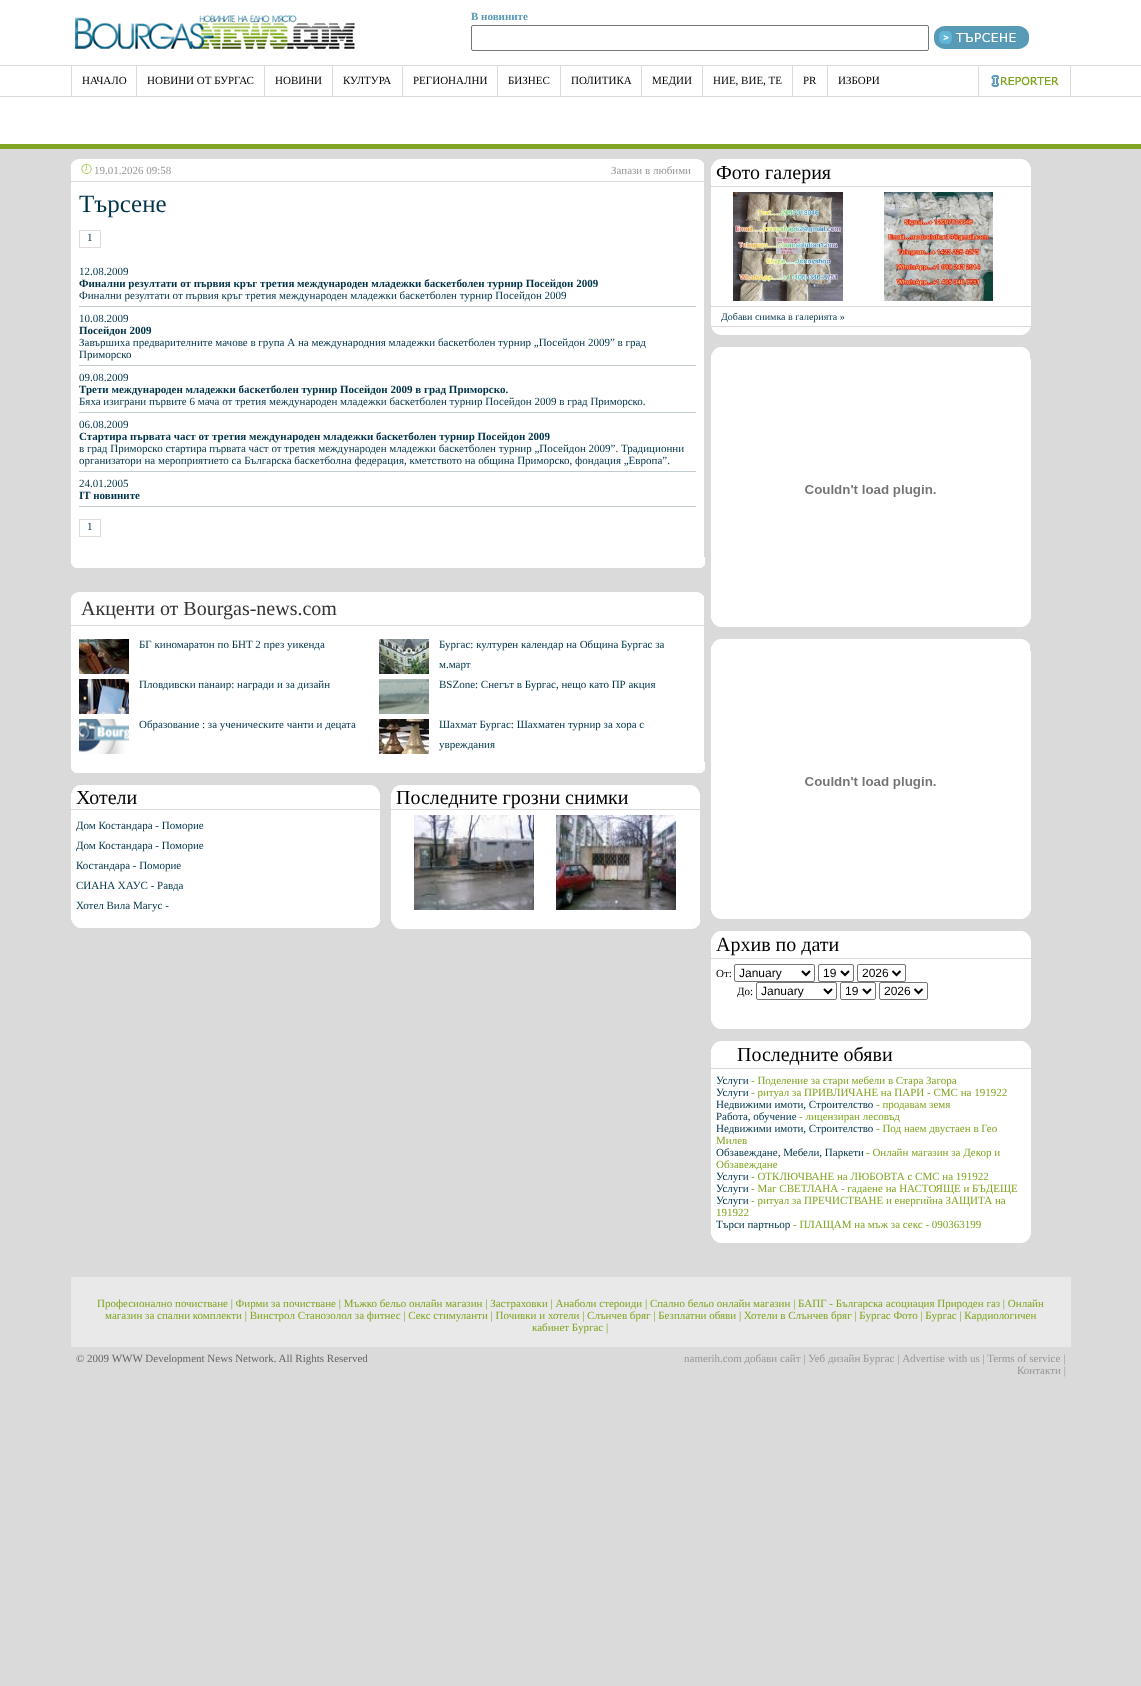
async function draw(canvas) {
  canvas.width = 1141;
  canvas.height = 1686;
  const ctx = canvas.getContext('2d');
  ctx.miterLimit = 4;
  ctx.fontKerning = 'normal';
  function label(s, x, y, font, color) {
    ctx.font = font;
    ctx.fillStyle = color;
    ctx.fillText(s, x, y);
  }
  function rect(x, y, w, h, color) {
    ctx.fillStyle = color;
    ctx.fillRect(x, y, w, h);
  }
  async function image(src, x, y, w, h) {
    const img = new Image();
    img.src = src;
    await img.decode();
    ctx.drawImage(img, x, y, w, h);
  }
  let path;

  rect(0, 0, 1141, 1686, '#dadada');
  rect(0, 0, 1141, 144, '#fff');
  rect(0, 144, 1141, 5, '#80a524');
  await image('assets/img1.png', 74, 15, 281, 34);
  label('В новините', 471, 20, 'bold 11px Liberation Serif', '#589ab6');
  ctx.beginPath();
  ctx.roundRect(471.5, 25.5, 457, 25, 1.5);
  ctx.strokeStyle = '#767676';
  ctx.stroke();
  await image('assets/img2.png', 934, 26, 95, 23);
  rect(0, 65, 1141, 1, '#dadada');
  rect(0, 96, 1141, 1, '#dadada');
  rect(71, 66, 1, 30, '#dadada');
  label('НАЧАЛО', 82, 84, '11px Liberation Serif', '#000');
  rect(136, 66, 1, 30, '#dadada');
  label('НОВИНИ ОТ БУРГАС', 147, 84, '11px Liberation Serif', '#000');
  rect(264, 66, 1, 30, '#dadada');
  label('НОВИНИ', 275, 84, '11px Liberation Serif', '#000');
  rect(332, 66, 1, 30, '#dadada');
  label('КУЛТУРА', 343, 84, '11px Liberation Serif', '#000');
  rect(402, 66, 1, 30, '#dadada');
  label('РЕГИОНАЛНИ', 413, 84, '11px Liberation Serif', '#000');
  rect(497, 66, 1, 30, '#dadada');
  label('БИЗНЕС', 508, 84, '11px Liberation Serif', '#000');
  rect(560, 66, 1, 30, '#dadada');
  label('ПОЛИТИКА', 571, 84, '11px Liberation Serif', '#000');
  rect(641, 66, 1, 30, '#dadada');
  label('МЕДИИ', 652, 84, '11px Liberation Serif', '#000');
  rect(702, 66, 1, 30, '#dadada');
  label('НИЕ, ВИЕ, ТЕ', 713, 84, '11px Liberation Serif', '#000');
  rect(792, 66, 1, 30, '#dadada');
  label('PR', 803, 84, '11px Liberation Serif', '#000');
  rect(827, 66, 1, 30, '#dadada');
  label('ИЗБОРИ', 838, 84, '11px Liberation Serif', '#000');
  rect(1070, 66, 1, 30, '#dadada');
  rect(978, 66, 1, 30, '#dadada');
  await image('assets/img3.png', 991, 75, 68, 12);
  rect(71, 165, 633, 16, '#fff');
  await image('assets/img4.png', 71, 159, 633, 6);
  await image('assets/img5.png', 81, 164, 11, 10);
  label('19.01.2026 09:58', 94, 174, '11px Liberation Serif', '#979797');
  label('Запази в любими', 611, 174, '11px Liberation Serif', '#979797');
  rect(71, 182, 633, 375, '#fff');
  label('Търсене', 79, 212, '25px Liberation Serif', '#00344a');
  ctx.strokeStyle = '#ddd';
  ctx.strokeRect(79.5, 230.5, 21, 17);
  label('1', 87, 241, '11px Liberation Serif', '#00344a');
  rect(79, 306, 617, 1, '#c2cbcf');
  label('12.08.2009', 79, 275, '11px Liberation Serif', '#00344a');
  label('Финални резултати от първия кръг третия международен младежки баскетболен турнир Посейдон 2009', 79, 287, 'bold 11px Liberation Serif', '#00344a');
  label('Финални резултати от първия кръг третия международен младежки баскетболен турнир Посейдон 2009', 79, 299, '11px Liberation Serif', '#00344a');
  rect(79, 365, 617, 1, '#c2cbcf');
  label('10.08.2009', 79, 322, '11px Liberation Serif', '#00344a');
  label('Посейдон 2009', 79, 334, 'bold 11px Liberation Serif', '#00344a');
  label('Завършиха предварителните мачове в група А на международния младежки баскетболен турнир „Посейдон 2009” в град', 79, 346, '11px Liberation Serif', '#00344a');
  label('Приморско', 79, 358, '11px Liberation Serif', '#00344a');
  rect(79, 412, 617, 1, '#c2cbcf');
  label('09.08.2009', 79, 381, '11px Liberation Serif', '#00344a');
  label('Трети международен младежки баскетболен турнир Посейдон 2009 в град Приморско.', 79, 393, 'bold 11px Liberation Serif', '#00344a');
  label('Бяха изиграни първите 6 мача от третия международен младежки баскетболен турнир Посейдон 2009 в град Приморско.', 79, 405, '11px Liberation Serif', '#00344a');
  rect(79, 471, 617, 1, '#c2cbcf');
  label('06.08.2009', 79, 428, '11px Liberation Serif', '#00344a');
  label('Стартира първата част от третия международен младежки баскетболен турнир Посейдон 2009', 79, 440, 'bold 11px Liberation Serif', '#00344a');
  label('в град Приморско стартира първата част от третия международен младежки баскетболен турнир „Посейдон 2009”. Традиционни', 79, 452, '11px Liberation Serif', '#00344a');
  label('организатори на мероприятието са Българска баскетболна федерация, кметството на община Приморско, фондация „Европа”.', 79, 464, '11px Liberation Serif', '#00344a');
  rect(79, 506, 617, 1, '#c2cbcf');
  label('24.01.2005', 79, 487, '11px Liberation Serif', '#00344a');
  label('IT новините', 79, 499, 'bold 11px Liberation Serif', '#00344a');
  ctx.strokeRect(79.5, 519.5, 21, 17);
  label('1', 87, 530, '11px Liberation Serif', '#00344a');
  await image('assets/img6.png', 71, 557, 634, 11);
  rect(71, 598, 633, 27, '#fff');
  await image('assets/img4.png', 71, 592, 633, 6);
  label('Акценти от Bourgas-news.com', 81, 615, '20px Liberation Serif', '#333');
  rect(71, 626, 633, 136, '#fff');
  await image('assets/img7.png', 79, 639, 50, 35);
  label('БГ киномаратон по БНТ 2 през уикенда', 139, 648, '11px Liberation Serif', '#00344a');
  await image('assets/img8.png', 79, 679, 50, 35);
  label('Пловдивски панаир: награди и за дизайн', 139, 688, '11px Liberation Serif', '#00344a');
  await image('assets/img9.png', 79, 719, 50, 35);
  label('Образование : за ученическите чанти и децата', 139, 728, '11px Liberation Serif', '#00344a');
  await image('assets/img10.png', 379, 639, 50, 35);
  label('Бургас: културен календар на Община Бургас за', 439, 648, '11px Liberation Serif', '#00344a');
  label('м.март', 439, 668, '11px Liberation Serif', '#00344a');
  await image('assets/img11.png', 379, 679, 50, 35);
  label('BSZone: Снегът в Бургас, нещо като ПР акция', 439, 688, '11px Liberation Serif', '#00344a');
  await image('assets/img12.png', 379, 719, 50, 35);
  label('Шахмат Бургас: Шахматен турнир за хора с', 439, 728, '11px Liberation Serif', '#00344a');
  label('увреждания', 439, 748, '11px Liberation Serif', '#00344a');
  await image('assets/img6.png', 71, 762, 634, 11);
  rect(71, 793, 309, 16, '#fff');
  await image('assets/img13.png', 71, 785, 309, 8);
  label('Хотели', 76, 804, '20px Liberation Serif', '#000');
  rect(71, 810, 309, 110, '#fff');
  label('Дом Костандара - Поморие', 76, 829, '11px Liberation Serif', '#00344a');
  label('Дом Костандара - Поморие', 76, 849, '11px Liberation Serif', '#00344a');
  label('Костандара - Поморие', 76, 869, '11px Liberation Serif', '#00344a');
  label('СИАНА ХАУС - Равда', 76, 889, '11px Liberation Serif', '#00344a');
  label('Хотел Вила Магус -', 76, 909, '11px Liberation Serif', '#00344a');
  await image('assets/img14.png', 71, 920, 310, 8);
  rect(391, 793, 309, 16, '#fff');
  await image('assets/img13.png', 391, 785, 309, 8);
  label('Последните грозни снимки', 396, 804, '20px Liberation Serif', '#000');
  rect(391, 810, 309, 111, '#fff');
  await image('assets/img15.png', 414, 815, 120, 95);
  await image('assets/img16.png', 556, 815, 120, 95);
  await image('assets/img14.png', 391, 921, 310, 8);
  rect(711, 167, 320, 19, '#fff');
  await image('assets/img17.png', 711, 159, 320, 8);
  label('Фото галерия', 716, 179, '20px Liberation Serif', '#000');
  rect(711, 187, 320, 119, '#fff');
  await image('assets/img18.png', 733, 192, 110, 109);
  await image('assets/img19.png', 884, 192, 109, 109);
  rect(711, 307, 320, 19, '#fff');
  label('Добави снимка в галерията »', 721, 320, '10px Liberation Serif', '#00344a');
  await image('assets/img20.png', 711, 327, 320, 8);
  rect(711, 355, 319, 4, '#fff');
  await image('assets/img21.png', 711, 347, 319, 8);
  rect(711, 359, 320, 260, '#fff');
  await image('assets/img22.png', 805, 485, 131, 12);
  await image('assets/img20.png', 711, 619, 320, 8);
  rect(711, 647, 319, 4, '#fff');
  await image('assets/img21.png', 711, 639, 319, 8);
  rect(711, 651, 320, 260, '#fff');
  await image('assets/img22.png', 805, 777, 131, 12);
  await image('assets/img20.png', 711, 911, 320, 8);
  rect(711, 939, 320, 19, '#fff');
  await image('assets/img17.png', 711, 931, 320, 8);
  label('Архив по дати', 716, 951, '20px Liberation Serif', '#000');
  rect(711, 959, 320, 62, '#fff');
  label('От:', 716, 977, '11px Liberation Serif', '#000');
  ctx.beginPath();
  ctx.roundRect(734.5, 964.5, 80, 17, 1.5);
  ctx.strokeStyle = '#767676';
  ctx.stroke();
  path = new Path2D('M802 971L806 975L810 971');
  ctx.strokeStyle = '#000';
  ctx.lineWidth = 2;
  ctx.stroke(path);
  label('January', 739, 977, '12px Liberation Sans', '#000');
  ctx.beginPath();
  ctx.roundRect(818.5, 964.5, 35, 17, 1.5);
  ctx.strokeStyle = '#767676';
  ctx.lineWidth = 1;
  ctx.stroke();
  path = new Path2D('M841 971L845 975L849 971');
  ctx.strokeStyle = '#000';
  ctx.lineWidth = 2;
  ctx.stroke(path);
  label('19', 823, 977, '12px Liberation Sans', '#000');
  ctx.beginPath();
  ctx.roundRect(857.5, 964.5, 48, 17, 1.5);
  ctx.strokeStyle = '#767676';
  ctx.lineWidth = 1;
  ctx.stroke();
  path = new Path2D('M892.5 971L896.5 975L900.5 971');
  ctx.strokeStyle = '#000';
  ctx.lineWidth = 2;
  ctx.stroke(path);
  label('2026', 862, 977, '12px Liberation Sans', '#000');
  label('До:', 737, 995, '11px Liberation Serif', '#000');
  ctx.beginPath();
  ctx.roundRect(756.5, 982.5, 80, 17, 1.5);
  ctx.strokeStyle = '#767676';
  ctx.lineWidth = 1;
  ctx.stroke();
  path = new Path2D('M824 989L828 993L832 989');
  ctx.strokeStyle = '#000';
  ctx.lineWidth = 2;
  ctx.stroke(path);
  label('January', 761, 995, '12px Liberation Sans', '#000');
  ctx.beginPath();
  ctx.roundRect(840.5, 982.5, 35, 17, 1.5);
  ctx.strokeStyle = '#767676';
  ctx.lineWidth = 1;
  ctx.stroke();
  path = new Path2D('M863 989L867 993L871 989');
  ctx.strokeStyle = '#000';
  ctx.lineWidth = 2;
  ctx.stroke(path);
  label('19', 845, 995, '12px Liberation Sans', '#000');
  ctx.beginPath();
  ctx.roundRect(879.5, 982.5, 48, 17, 1.5);
  ctx.strokeStyle = '#767676';
  ctx.lineWidth = 1;
  ctx.stroke();
  path = new Path2D('M914.5 989L918.5 993L922.5 989');
  ctx.strokeStyle = '#000';
  ctx.lineWidth = 2;
  ctx.stroke(path);
  label('2026', 884, 995, '12px Liberation Sans', '#000');
  await image('assets/img20.png', 711, 1021, 320, 8);
  rect(711, 1049, 320, 19, '#fff');
  await image('assets/img17.png', 711, 1041, 320, 8);
  label('Последните обяви', 737, 1061, '20px Liberation Serif', '#000');
  rect(711, 1069, 320, 166, '#fff');
  label('Услуги', 716, 1084, '11px Liberation Serif', '#00344a');
  label('- Поделение за стари мебели в Стара Загора', 751, 1084, '11px Liberation Serif', '#80a524');
  label('Услуги', 716, 1096, '11px Liberation Serif', '#00344a');
  label('- ритуал за ПРИВЛИЧАНЕ на ПАРИ - СМС на 191922', 751, 1096, '11px Liberation Serif', '#80a524');
  label('Недвижими имоти, Строителство', 716, 1108, '11px Liberation Serif', '#00344a');
  label('- продавам земя', 876, 1108, '11px Liberation Serif', '#80a524');
  label('Работа, обучение', 716, 1120, '11px Liberation Serif', '#00344a');
  label('- лицензиран лесовъд', 799, 1120, '11px Liberation Serif', '#80a524');
  label('Недвижими имоти, Строителство', 716, 1132, '11px Liberation Serif', '#00344a');
  label('- Под наем двустаен в Гео', 876, 1132, '11px Liberation Serif', '#80a524');
  label('Милев', 716, 1144, '11px Liberation Serif', '#80a524');
  label('Обзавеждане, Мебели, Паркети', 716, 1156, '11px Liberation Serif', '#00344a');
  label('- Онлайн магазин за Декор и', 866, 1156, '11px Liberation Serif', '#80a524');
  label('Обзавеждане', 716, 1168, '11px Liberation Serif', '#80a524');
  label('Услуги', 716, 1180, '11px Liberation Serif', '#00344a');
  label('- ОТКЛЮЧВАНЕ на ЛЮБОВТА с СМС на 191922', 751, 1180, '11px Liberation Serif', '#80a524');
  label('Услуги', 716, 1192, '11px Liberation Serif', '#00344a');
  label('- Маг СВЕТЛАНА - гадаене на НАСТОЯЩЕ и БЪДЕЩЕ', 751, 1192, '11px Liberation Serif', '#80a524');
  label('Услуги', 716, 1204, '11px Liberation Serif', '#00344a');
  label('- ритуал за ПРЕЧИСТВАНЕ и енергийна ЗАЩИТА на', 751, 1204, '11px Liberation Serif', '#80a524');
  label('191922', 716, 1216, '11px Liberation Serif', '#80a524');
  label('Търси партньор', 716, 1228, '11px Liberation Serif', '#00344a');
  label('- ПЛАЩАМ на мъж за секс - 090363199', 793, 1228, '11px Liberation Serif', '#80a524');
  await image('assets/img20.png', 711, 1235, 320, 8);
  rect(71, 1277, 1000, 70, '#e9e9e9');
  label('Професионално почистване | Фирми за почистване | Мъжко бельо онлайн магазин | Застраховки | Анаболи стероиди | Спално бельо онлайн магазин | БАПГ - Българска асоциация Природен газ | Онлайн', 97, 1307, '11px Liberation Serif', '#80a524');
  label('магазин за спални комплекти | Винстрол Станозолол за фитнес | Секс стимуланти | Почивки и хотели | Слънчев бряг | Безплатни обяви | Хотели в Слънчев бряг | Бургас Фото | Бургас | Кардиологичен', 105, 1319, '11px Liberation Serif', '#80a524');
  label('кабинет Бургас |', 532, 1331, '11px Liberation Serif', '#80a524');
  label('© 2009 WWW Development News Network. All Rights Reserved', 76, 1362, '11px Liberation Serif', '#666');
  label('namerih.com добави сайт | Уеб дизайн Бургас | Advertise with us | Terms of service |', 684, 1362, '11px Liberation Serif', '#979797');
  label('Контакти |', 1017, 1374, '11px Liberation Serif', '#979797');
}

draw(document.querySelector('canvas'));
